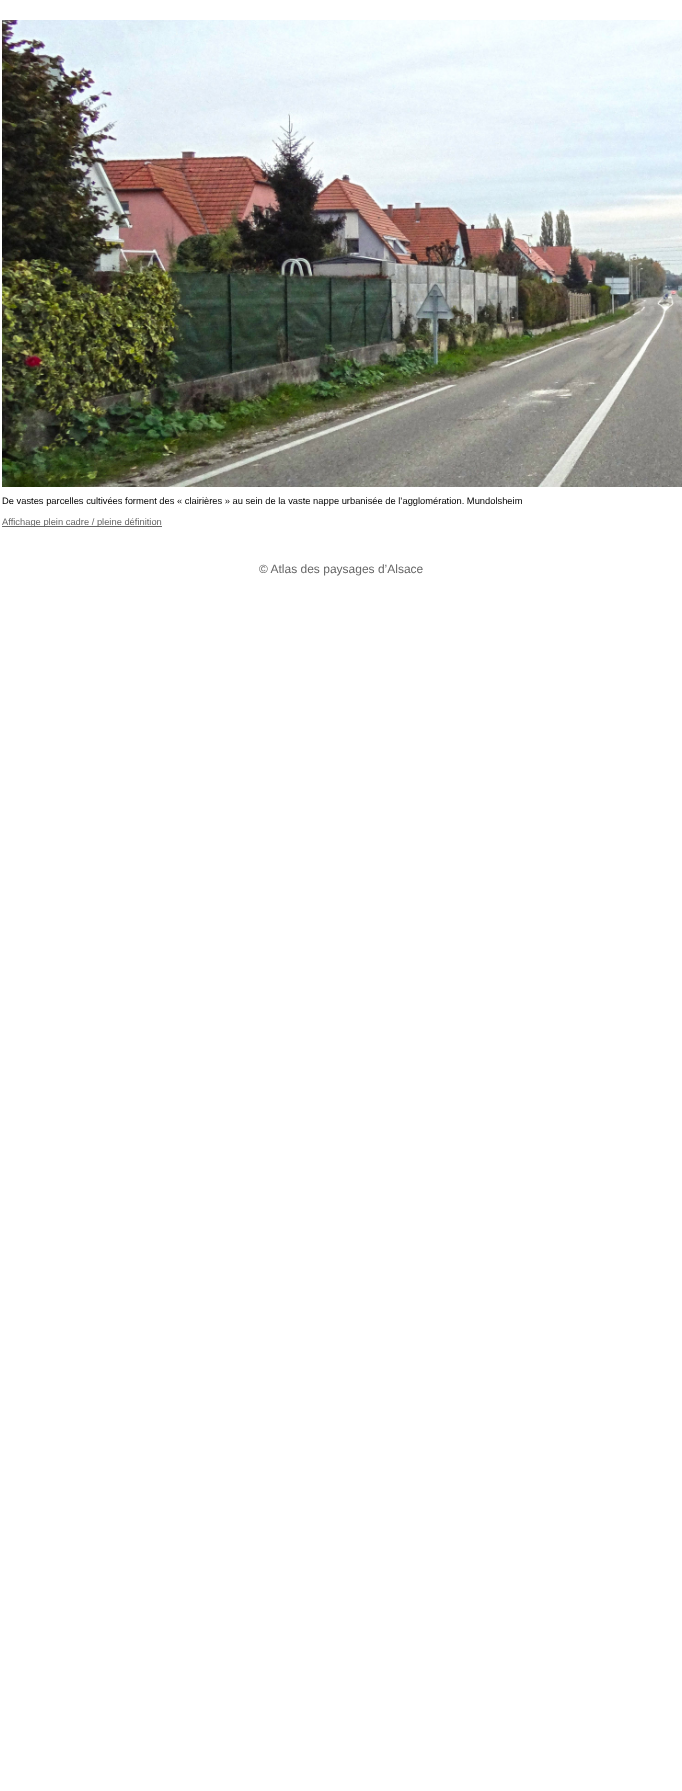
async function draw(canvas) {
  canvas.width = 682;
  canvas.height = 1791;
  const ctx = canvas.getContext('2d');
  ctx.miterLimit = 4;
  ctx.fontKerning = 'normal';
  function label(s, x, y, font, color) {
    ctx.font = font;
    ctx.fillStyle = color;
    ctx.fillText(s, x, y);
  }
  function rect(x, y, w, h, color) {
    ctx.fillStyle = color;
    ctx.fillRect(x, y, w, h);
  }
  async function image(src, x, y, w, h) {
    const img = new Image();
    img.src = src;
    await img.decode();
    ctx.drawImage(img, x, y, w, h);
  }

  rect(0, 0, 682, 1791, '#fff');
  await image('assets/img1.png', 2, 20, 680, 467);
  label('De vastes parcelles cultivées forment des « clairières » au sein de la vaste nappe urbanisée de l’agglomération. Mundolsheim', 2, 504, '9.35px Liberation Sans', '#000');
  rect(2, 526, 160, 1, '#666');
  label('Affichage plein cadre / pleine définition', 2, 525, '9.35px Liberation Sans', '#666');
  label('© Atlas des paysages d’Alsace', 259, 573, '12px Liberation Sans', '#666');
}

draw(document.querySelector('canvas'));
